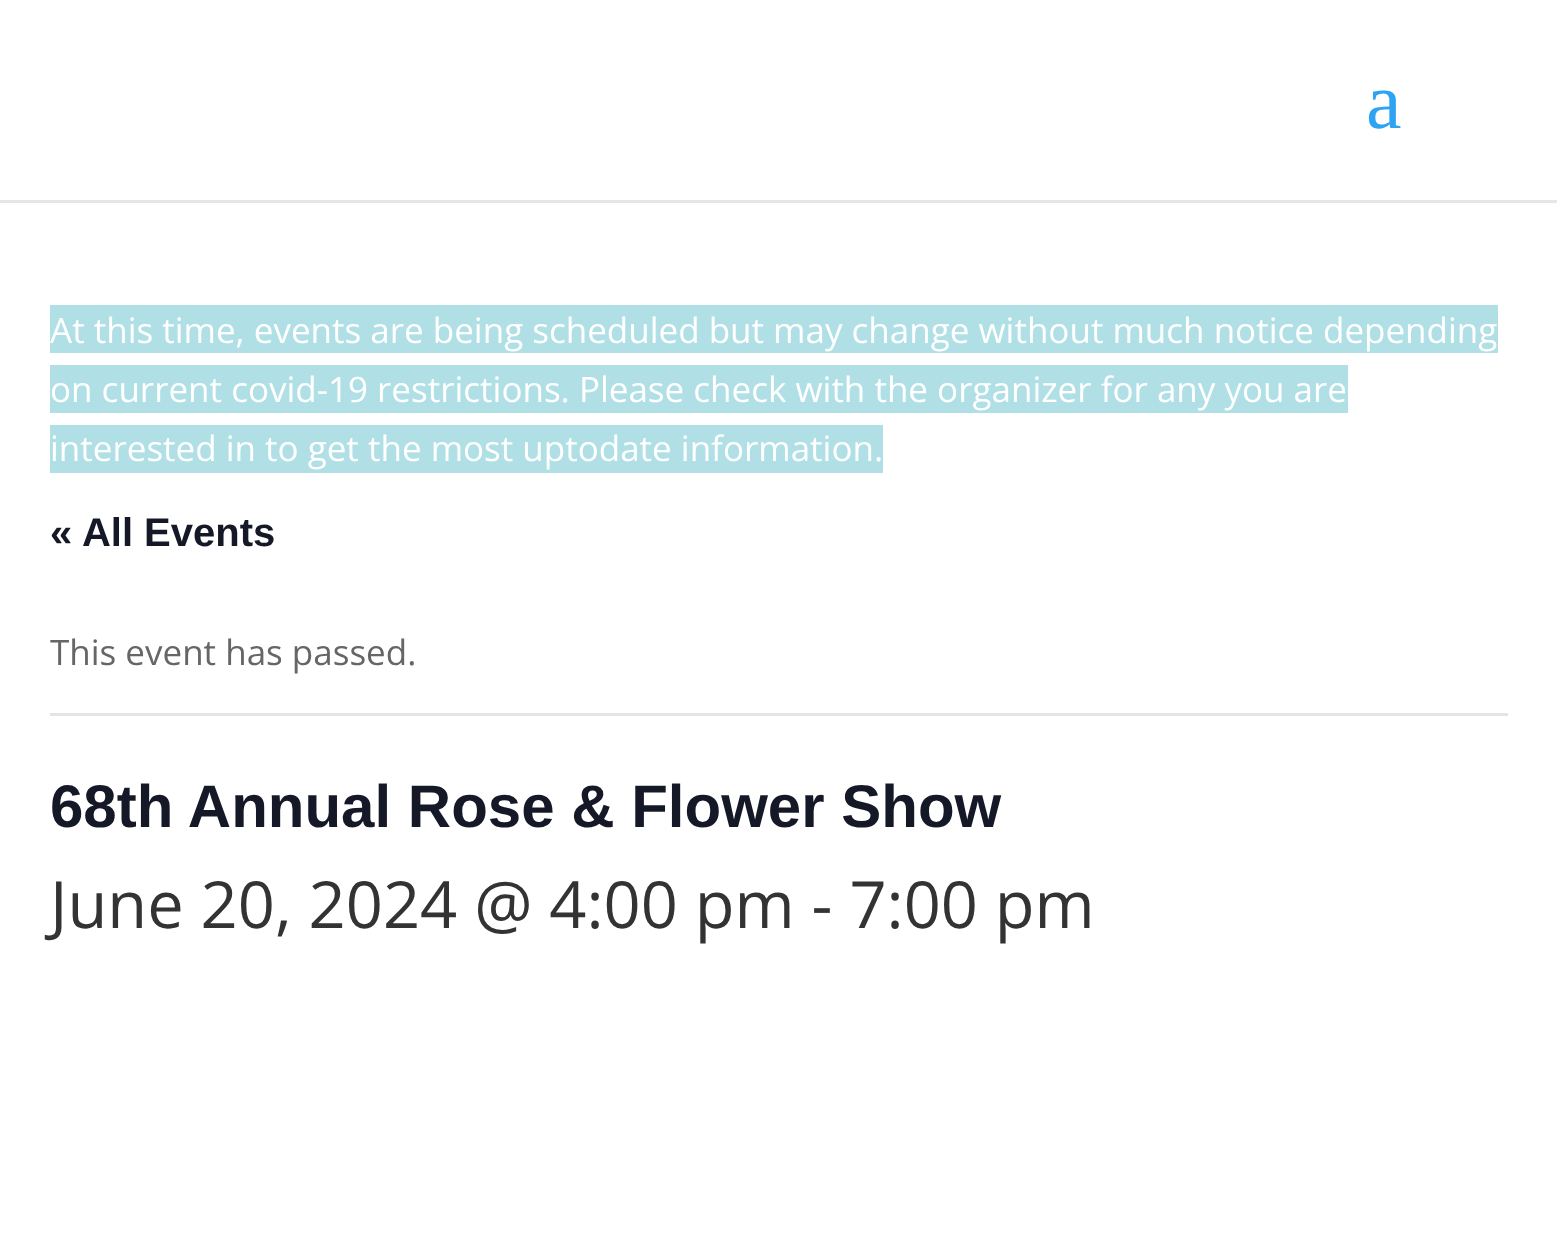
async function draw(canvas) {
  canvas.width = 1557;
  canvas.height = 1244;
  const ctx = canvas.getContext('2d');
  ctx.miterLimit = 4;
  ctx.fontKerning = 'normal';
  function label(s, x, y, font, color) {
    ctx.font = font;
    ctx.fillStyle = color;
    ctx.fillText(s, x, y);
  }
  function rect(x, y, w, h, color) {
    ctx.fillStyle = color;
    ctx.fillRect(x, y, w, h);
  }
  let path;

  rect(0, 0, 1557, 1244, '#fff');
  ctx.fillStyle = '#e6e6e6';
  path = new Path2D('M0 200V203H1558V3V200Z');
  ctx.fill(path);
  label('a', 1366, 128, '80px Liberation Serif', '#2ea3f2');
  rect(50, 305, 1448, 48, '#b0e0e6');
  label('At this time, events are being scheduled but may change without much notice depending', 50, 343, '35px Open Sans', '#fff');
  rect(50, 365, 1298, 48, '#b0e0e6');
  label('on current covid-19 restrictions. Please check with the organizer for any you are', 50, 402, '35px Open Sans', '#fff');
  rect(50, 425, 833, 48, '#b0e0e6');
  label('interested in to get the most uptodate information.', 50, 461, '35px Open Sans', '#fff');
  label('« All Events', 50, 546, 'bold 40px Liberation Sans', '#141827');
  rect(50, 713, 1458, 3, '#e4e4e4');
  label('This event has passed.', 50, 665, '35px Open Sans', '#666');
  label('68th Annual Rose & Flower Show', 50, 827, 'bold 60px Liberation Sans', '#141827');
  label('June 20, 2024 @ 4:00 pm - 7:00 pm', 50, 928, '65px Open Sans', '#333');
}

draw(document.querySelector('canvas'));
